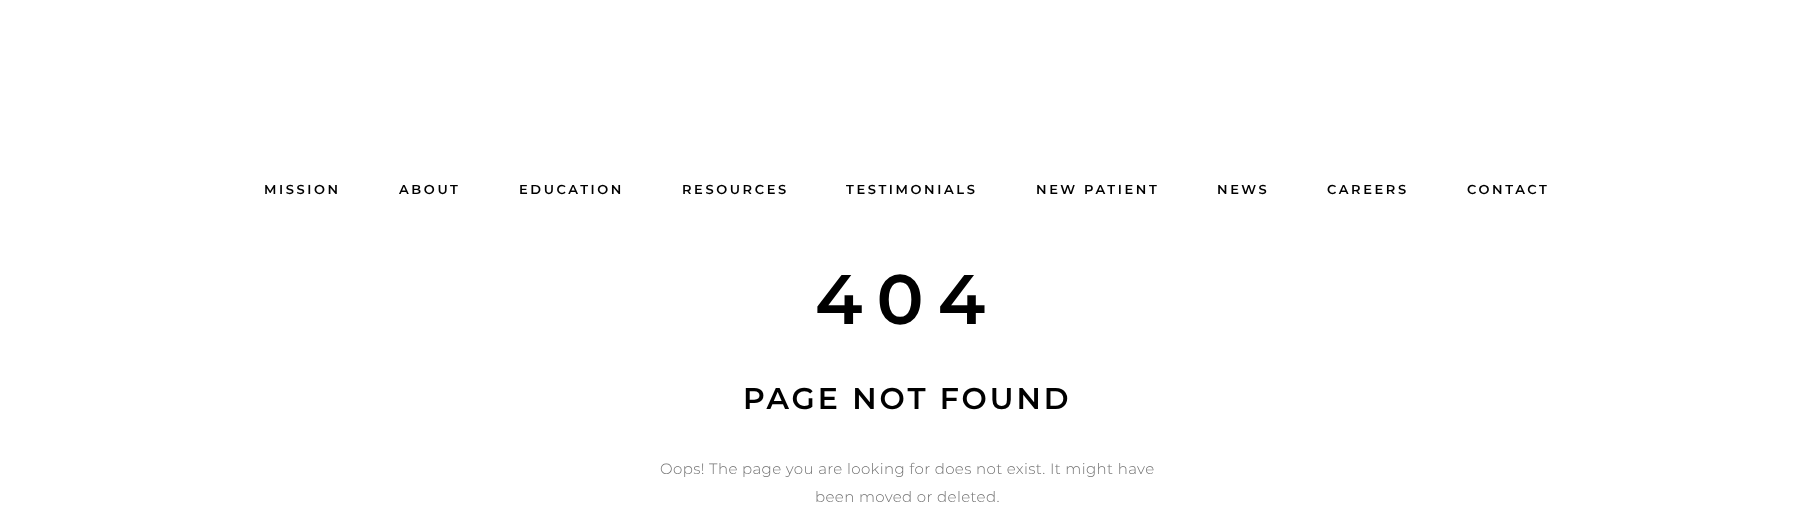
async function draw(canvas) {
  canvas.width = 1814;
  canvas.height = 524;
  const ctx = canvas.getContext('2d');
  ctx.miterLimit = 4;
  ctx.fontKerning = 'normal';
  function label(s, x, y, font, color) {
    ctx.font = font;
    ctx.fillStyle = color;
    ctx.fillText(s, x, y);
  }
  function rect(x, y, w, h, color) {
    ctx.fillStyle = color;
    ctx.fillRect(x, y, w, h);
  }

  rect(0, 0, 1814, 524, '#fff');
  ctx.letterSpacing = '2.6px';
  label('MISSION', 264, 194, '600 13px Montserrat', '#000');
  label('ABOUT', 399, 194, '600 13px Montserrat', '#000');
  label('EDUCATION', 519, 194, '600 13px Montserrat', '#000');
  label('RESOURCES', 682, 194, '600 13px Montserrat', '#000');
  label('TESTIMONIALS', 846, 194, '600 13px Montserrat', '#000');
  label('NEW PATIENT', 1036, 194, '600 13px Montserrat', '#000');
  label('NEWS', 1217, 194, '600 13px Montserrat', '#000');
  label('CAREERS', 1327, 194, '600 13px Montserrat', '#000');
  label('CONTACT', 1467, 194, '600 13px Montserrat', '#000');
  ctx.letterSpacing = '14px';
  label('404', 815, 324, '600 70px Montserrat', '#000');
  ctx.letterSpacing = '3px';
  label('PAGE NOT FOUND', 743, 409, '600 30px Montserrat', '#000');
  ctx.letterSpacing = '0.38px';
  label('Oops! The page you are looking for does not exist. It might have', 660, 474, '300 15px Montserrat', '#727272');
  label('been moved or deleted.', 815, 502, '300 15px Montserrat', '#727272');
}

draw(document.querySelector('canvas'));
